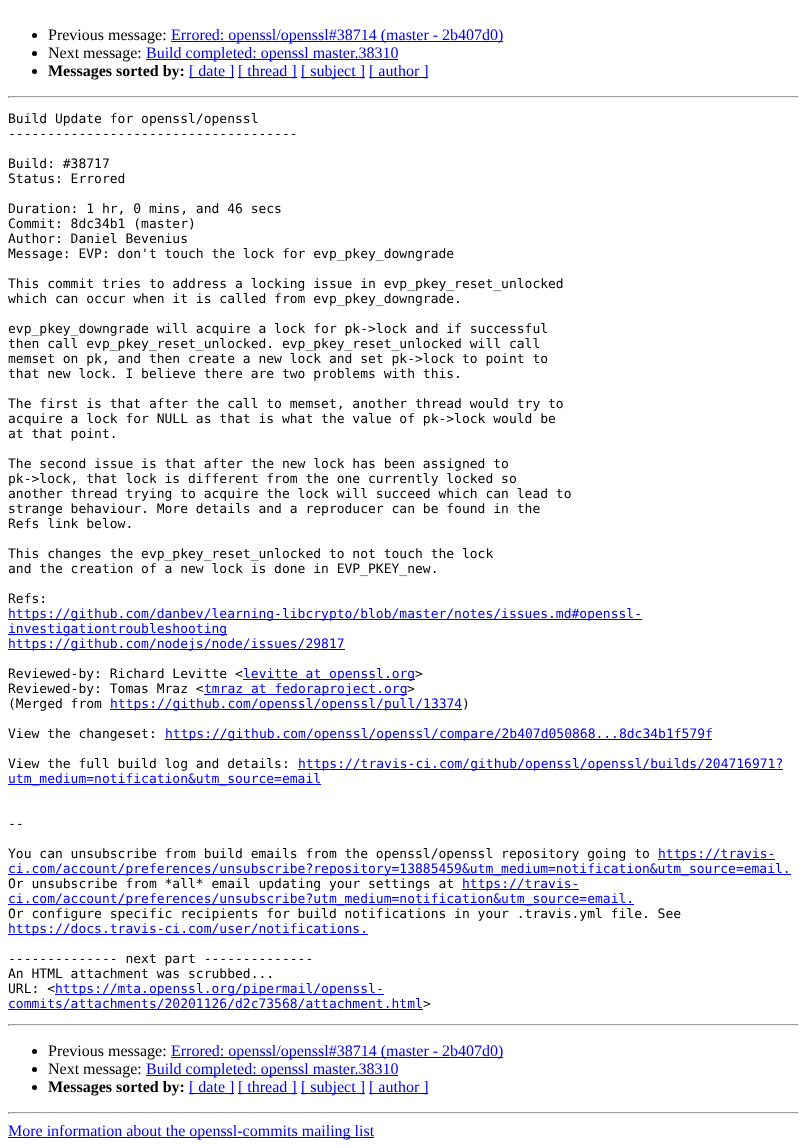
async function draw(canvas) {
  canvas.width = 807;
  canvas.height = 1148;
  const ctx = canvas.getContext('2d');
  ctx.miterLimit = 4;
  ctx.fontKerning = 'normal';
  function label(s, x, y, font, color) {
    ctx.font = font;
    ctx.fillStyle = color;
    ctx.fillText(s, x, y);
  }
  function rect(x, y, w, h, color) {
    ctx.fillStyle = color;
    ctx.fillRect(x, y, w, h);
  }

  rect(0, 0, 807, 1148, '#fff');
  ctx.fillStyle = '#000';
  ctx.beginPath();
  ctx.arc(34.5, 35.5, 2.5, 0, 2 * Math.PI);
  ctx.fill();
  label('Previous message:', 48, 40, '16px Liberation Serif', '#000');
  rect(171, 41, 332, 1, '#00e');
  label('Errored: openssl/openssl#38714 (master - 2b407d0)', 171, 40, '16px Liberation Serif', '#00e');
  ctx.fillStyle = '#000';
  ctx.beginPath();
  ctx.arc(34.5, 53.5, 2.5, 0, 2 * Math.PI);
  ctx.fill();
  label('Next message:', 48, 58, '16px Liberation Serif', '#000');
  rect(146, 59, 252, 1, '#00e');
  label('Build completed: openssl master.38310', 146, 58, '16px Liberation Serif', '#00e');
  ctx.fillStyle = '#000';
  ctx.beginPath();
  ctx.arc(34.5, 71.5, 2.5, 0, 2 * Math.PI);
  ctx.fill();
  label('Messages sorted by:', 48, 76, 'bold 16px Liberation Serif', '#000');
  rect(189, 77, 45, 1, '#00e');
  label('[ date ]', 189, 76, '16px Liberation Serif', '#00e');
  rect(238, 77, 59, 1, '#00e');
  label('[ thread ]', 238, 76, '16px Liberation Serif', '#00e');
  rect(301, 77, 64, 1, '#00e');
  label('[ subject ]', 301, 76, '16px Liberation Serif', '#00e');
  rect(369, 77, 59, 1, '#00e');
  label('[ author ]', 369, 76, '16px Liberation Serif', '#00e');
  rect(8, 96, 791, 1, '#9f9f9f');
  rect(798, 96, 1, 2, '#eee');
  rect(8, 97, 791, 1, '#eee');
  rect(8, 96, 1, 2, '#9f9f9f');
  label('Build Update for openssl/openssl', 8, 123, '13px DejaVu Sans Mono', '#000');
  label('-------------------------------------', 8, 138, '13px DejaVu Sans Mono', '#000');
  label('Build: #38717', 8, 168, '13px DejaVu Sans Mono', '#000');
  label('Status: Errored', 8, 183, '13px DejaVu Sans Mono', '#000');
  label('Duration: 1 hr, 0 mins, and 46 secs', 8, 213, '13px DejaVu Sans Mono', '#000');
  label('Commit: 8dc34b1 (master)', 8, 228, '13px DejaVu Sans Mono', '#000');
  label('Author: Daniel Bevenius', 8, 243, '13px DejaVu Sans Mono', '#000');
  label('Message: EVP: don\'t touch the lock for evp_pkey_downgrade', 8, 258, '13px DejaVu Sans Mono', '#000');
  label('This commit tries to address a locking issue in evp_pkey_reset_unlocked', 8, 288, '13px DejaVu Sans Mono', '#000');
  label('which can occur when it is called from evp_pkey_downgrade.', 8, 303, '13px DejaVu Sans Mono', '#000');
  label('evp_pkey_downgrade will acquire a lock for pk->lock and if successful', 8, 333, '13px DejaVu Sans Mono', '#000');
  label('then call evp_pkey_reset_unlocked. evp_pkey_reset_unlocked will call', 8, 348, '13px DejaVu Sans Mono', '#000');
  label('memset on pk, and then create a new lock and set pk->lock to point to', 8, 363, '13px DejaVu Sans Mono', '#000');
  label('that new lock. I believe there are two problems with this.', 8, 378, '13px DejaVu Sans Mono', '#000');
  label('The first is that after the call to memset, another thread would try to', 8, 408, '13px DejaVu Sans Mono', '#000');
  label('acquire a lock for NULL as that is what the value of pk->lock would be', 8, 423, '13px DejaVu Sans Mono', '#000');
  label('at that point.', 8, 438, '13px DejaVu Sans Mono', '#000');
  label('The second issue is that after the new lock has been assigned to', 8, 468, '13px DejaVu Sans Mono', '#000');
  label('pk->lock, that lock is different from the one currently locked so', 8, 483, '13px DejaVu Sans Mono', '#000');
  label('another thread trying to acquire the lock will succeed which can lead to', 8, 498, '13px DejaVu Sans Mono', '#000');
  label('strange behaviour. More details and a reproducer can be found in the', 8, 513, '13px DejaVu Sans Mono', '#000');
  label('Refs link below.', 8, 528, '13px DejaVu Sans Mono', '#000');
  label('This changes the evp_pkey_reset_unlocked to not touch the lock', 8, 558, '13px DejaVu Sans Mono', '#000');
  label('and the creation of a new lock is done in EVP_PKEY_new.', 8, 573, '13px DejaVu Sans Mono', '#000');
  label('Refs:', 8, 603, '13px DejaVu Sans Mono', '#000');
  rect(8, 619, 634, 1, '#00e');
  label('https://github.com/danbev/learning-libcrypto/blob/master/notes/issues.md#openssl-', 8, 618, '13px DejaVu Sans Mono', '#00e');
  rect(8, 634, 219, 1, '#00e');
  label('investigationtroubleshooting', 8, 633, '13px DejaVu Sans Mono', '#00e');
  rect(8, 649, 337, 1, '#00e');
  label('https://github.com/nodejs/node/issues/29817', 8, 648, '13px DejaVu Sans Mono', '#00e');
  label('Reviewed-by: Richard Levitte <', 8, 678, '13px DejaVu Sans Mono', '#000');
  rect(243, 679, 172, 1, '#00e');
  label('levitte at openssl.org', 243, 678, '13px DejaVu Sans Mono', '#00e');
  label('>', 415, 678, '13px DejaVu Sans Mono', '#000');
  label('Reviewed-by: Tomas Mraz <', 8, 693, '13px DejaVu Sans Mono', '#000');
  rect(204, 694, 203, 1, '#00e');
  label('tmraz at fedoraproject.org', 204, 693, '13px DejaVu Sans Mono', '#00e');
  label('>', 407, 693, '13px DejaVu Sans Mono', '#000');
  label('(Merged from', 8, 708, '13px DejaVu Sans Mono', '#000');
  rect(110, 709, 352, 1, '#00e');
  label('https://github.com/openssl/openssl/pull/13374', 110, 708, '13px DejaVu Sans Mono', '#00e');
  label(')', 462, 708, '13px DejaVu Sans Mono', '#000');
  label('View the changeset:', 8, 738, '13px DejaVu Sans Mono', '#000');
  rect(165, 739, 547, 1, '#00e');
  label('https://github.com/openssl/openssl/compare/2b407d050868...8dc34b1f579f', 165, 738, '13px DejaVu Sans Mono', '#00e');
  label('View the full build log and details:', 8, 768, '13px DejaVu Sans Mono', '#000');
  rect(298, 769, 485, 1, '#00e');
  label('https://travis-ci.com/github/openssl/openssl/builds/204716971?', 298, 768, '13px DejaVu Sans Mono', '#00e');
  rect(8, 784, 313, 1, '#00e');
  label('utm_medium=notification&utm_source=email', 8, 783, '13px DejaVu Sans Mono', '#00e');
  label('--', 8, 828, '13px DejaVu Sans Mono', '#000');
  label('You can unsubscribe from build emails from the openssl/openssl repository going to', 8, 858, '13px DejaVu Sans Mono', '#000');
  rect(658, 859, 117, 1, '#00e');
  label('https://travis-', 658, 858, '13px DejaVu Sans Mono', '#00e');
  rect(8, 874, 783, 1, '#00e');
  label('ci.com/account/preferences/unsubscribe?repository=13885459&utm_medium=notification&utm_source=email.', 8, 873, '13px DejaVu Sans Mono', '#00e');
  label('Or unsubscribe from *all* email updating your settings at', 8, 888, '13px DejaVu Sans Mono', '#000');
  rect(462, 889, 117, 1, '#00e');
  label('https://travis-', 462, 888, '13px DejaVu Sans Mono', '#00e');
  rect(8, 904, 626, 1, '#00e');
  label('ci.com/account/preferences/unsubscribe?utm_medium=notification&utm_source=email.', 8, 903, '13px DejaVu Sans Mono', '#00e');
  label('Or configure specific recipients for build notifications in your .travis.yml file. See', 8, 918, '13px DejaVu Sans Mono', '#000');
  rect(8, 934, 360, 1, '#00e');
  label('https://docs.travis-ci.com/user/notifications.', 8, 933, '13px DejaVu Sans Mono', '#00e');
  label('-------------- next part --------------', 8, 963, '13px DejaVu Sans Mono', '#000');
  label('An HTML attachment was scrubbed...', 8, 978, '13px DejaVu Sans Mono', '#000');
  label('URL: <', 8, 993, '13px DejaVu Sans Mono', '#000');
  rect(55, 994, 329, 1, '#00e');
  label('https://mta.openssl.org/pipermail/openssl-', 55, 993, '13px DejaVu Sans Mono', '#00e');
  rect(8, 1009, 415, 1, '#00e');
  label('commits/attachments/20201126/d2c73568/attachment.html', 8, 1008, '13px DejaVu Sans Mono', '#00e');
  label('>', 423, 1008, '13px DejaVu Sans Mono', '#000');
  rect(8, 1024, 791, 1, '#9f9f9f');
  rect(798, 1024, 1, 2, '#eee');
  rect(8, 1025, 791, 1, '#eee');
  rect(8, 1024, 1, 2, '#9f9f9f');
  ctx.fillStyle = '#000';
  ctx.beginPath();
  ctx.arc(34.5, 1051.5, 2.5, 0, 2 * Math.PI);
  ctx.fill();
  label('Previous message:', 48, 1056, '16px Liberation Serif', '#000');
  rect(171, 1057, 332, 1, '#00e');
  label('Errored: openssl/openssl#38714 (master - 2b407d0)', 171, 1056, '16px Liberation Serif', '#00e');
  ctx.fillStyle = '#000';
  ctx.beginPath();
  ctx.arc(34.5, 1069.5, 2.5, 0, 2 * Math.PI);
  ctx.fill();
  label('Next message:', 48, 1074, '16px Liberation Serif', '#000');
  rect(146, 1075, 252, 1, '#00e');
  label('Build completed: openssl master.38310', 146, 1074, '16px Liberation Serif', '#00e');
  ctx.fillStyle = '#000';
  ctx.beginPath();
  ctx.arc(34.5, 1087.5, 2.5, 0, 2 * Math.PI);
  ctx.fill();
  label('Messages sorted by:', 48, 1092, 'bold 16px Liberation Serif', '#000');
  rect(189, 1093, 45, 1, '#00e');
  label('[ date ]', 189, 1092, '16px Liberation Serif', '#00e');
  rect(238, 1093, 59, 1, '#00e');
  label('[ thread ]', 238, 1092, '16px Liberation Serif', '#00e');
  rect(301, 1093, 64, 1, '#00e');
  label('[ subject ]', 301, 1092, '16px Liberation Serif', '#00e');
  rect(369, 1093, 59, 1, '#00e');
  label('[ author ]', 369, 1092, '16px Liberation Serif', '#00e');
  rect(8, 1112, 791, 1, '#9f9f9f');
  rect(798, 1112, 1, 2, '#eee');
  rect(8, 1113, 791, 1, '#eee');
  rect(8, 1112, 1, 2, '#9f9f9f');
  rect(8, 1137, 366, 1, '#00e');
  label('More information about the openssl-commits mailing list', 8, 1136, '16px Liberation Serif', '#00e');
}

draw(document.querySelector('canvas'));
